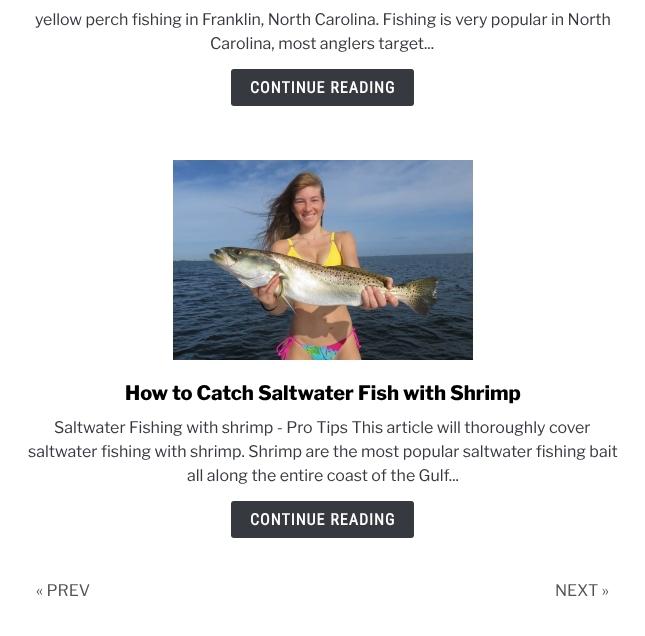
async function draw(canvas) {
  canvas.width = 645;
  canvas.height = 636;
  const ctx = canvas.getContext('2d');
  ctx.miterLimit = 4;
  ctx.fontKerning = 'normal';
  function label(s, x, y, font, color) {
    ctx.font = font;
    ctx.fillStyle = color;
    ctx.fillText(s, x, y);
  }
  function rect(x, y, w, h, color) {
    ctx.fillStyle = color;
    ctx.fillRect(x, y, w, h);
  }
  function roundedRect(x, y, w, h, r, color) {
    ctx.fillStyle = color;
    ctx.beginPath();
    ctx.roundRect(x, y, w, h, r);
    ctx.fill();
  }
  async function image(src, x, y, w, h) {
    const img = new Image();
    img.src = src;
    await img.decode();
    ctx.drawImage(img, x, y, w, h);
  }

  rect(0, 0, 645, 636, '#fff');
  label('yellow perch fishing in Franklin, North Carolina. Fishing is very popular in North', 35, 25, '16px Libre Franklin', '#363940');
  label('Carolina, most anglers target...', 210, 49, '16px Libre Franklin', '#363940');
  roundedRect(231, 69, 183, 37, 3, '#363940');
  ctx.letterSpacing = '1px';
  label('CONTINUE READING', 250, 93, 'bold 16px Roboto Condensed', '#fff');
  await image('assets/img1.png', 173, 160, 300, 200);
  ctx.letterSpacing = '0px';
  label('How to Catch Saltwater Fish with Shrimp', 125, 400, '800 20px Libre Franklin', '#000');
  label('Saltwater Fishing with shrimp - Pro Tips This article will thoroughly cover', 54, 433, '16px Libre Franklin', '#363940');
  label('saltwater fishing with shrimp. Shrimp are the most popular saltwater fishing bait', 28, 457, '16px Libre Franklin', '#363940');
  label('all along the entire coast of the Gulf...', 187, 481, '16px Libre Franklin', '#363940');
  roundedRect(231, 501, 183, 37, 3, '#363940');
  ctx.letterSpacing = '1px';
  label('CONTINUE READING', 250, 525, 'bold 16px Roboto Condensed', '#fff');
  ctx.letterSpacing = '0px';
  label('« PREV', 36, 596, '16px Libre Franklin', '#545454');
  label('NEXT »', 555, 596, '16px Libre Franklin', '#545454');
}

draw(document.querySelector('canvas'));
